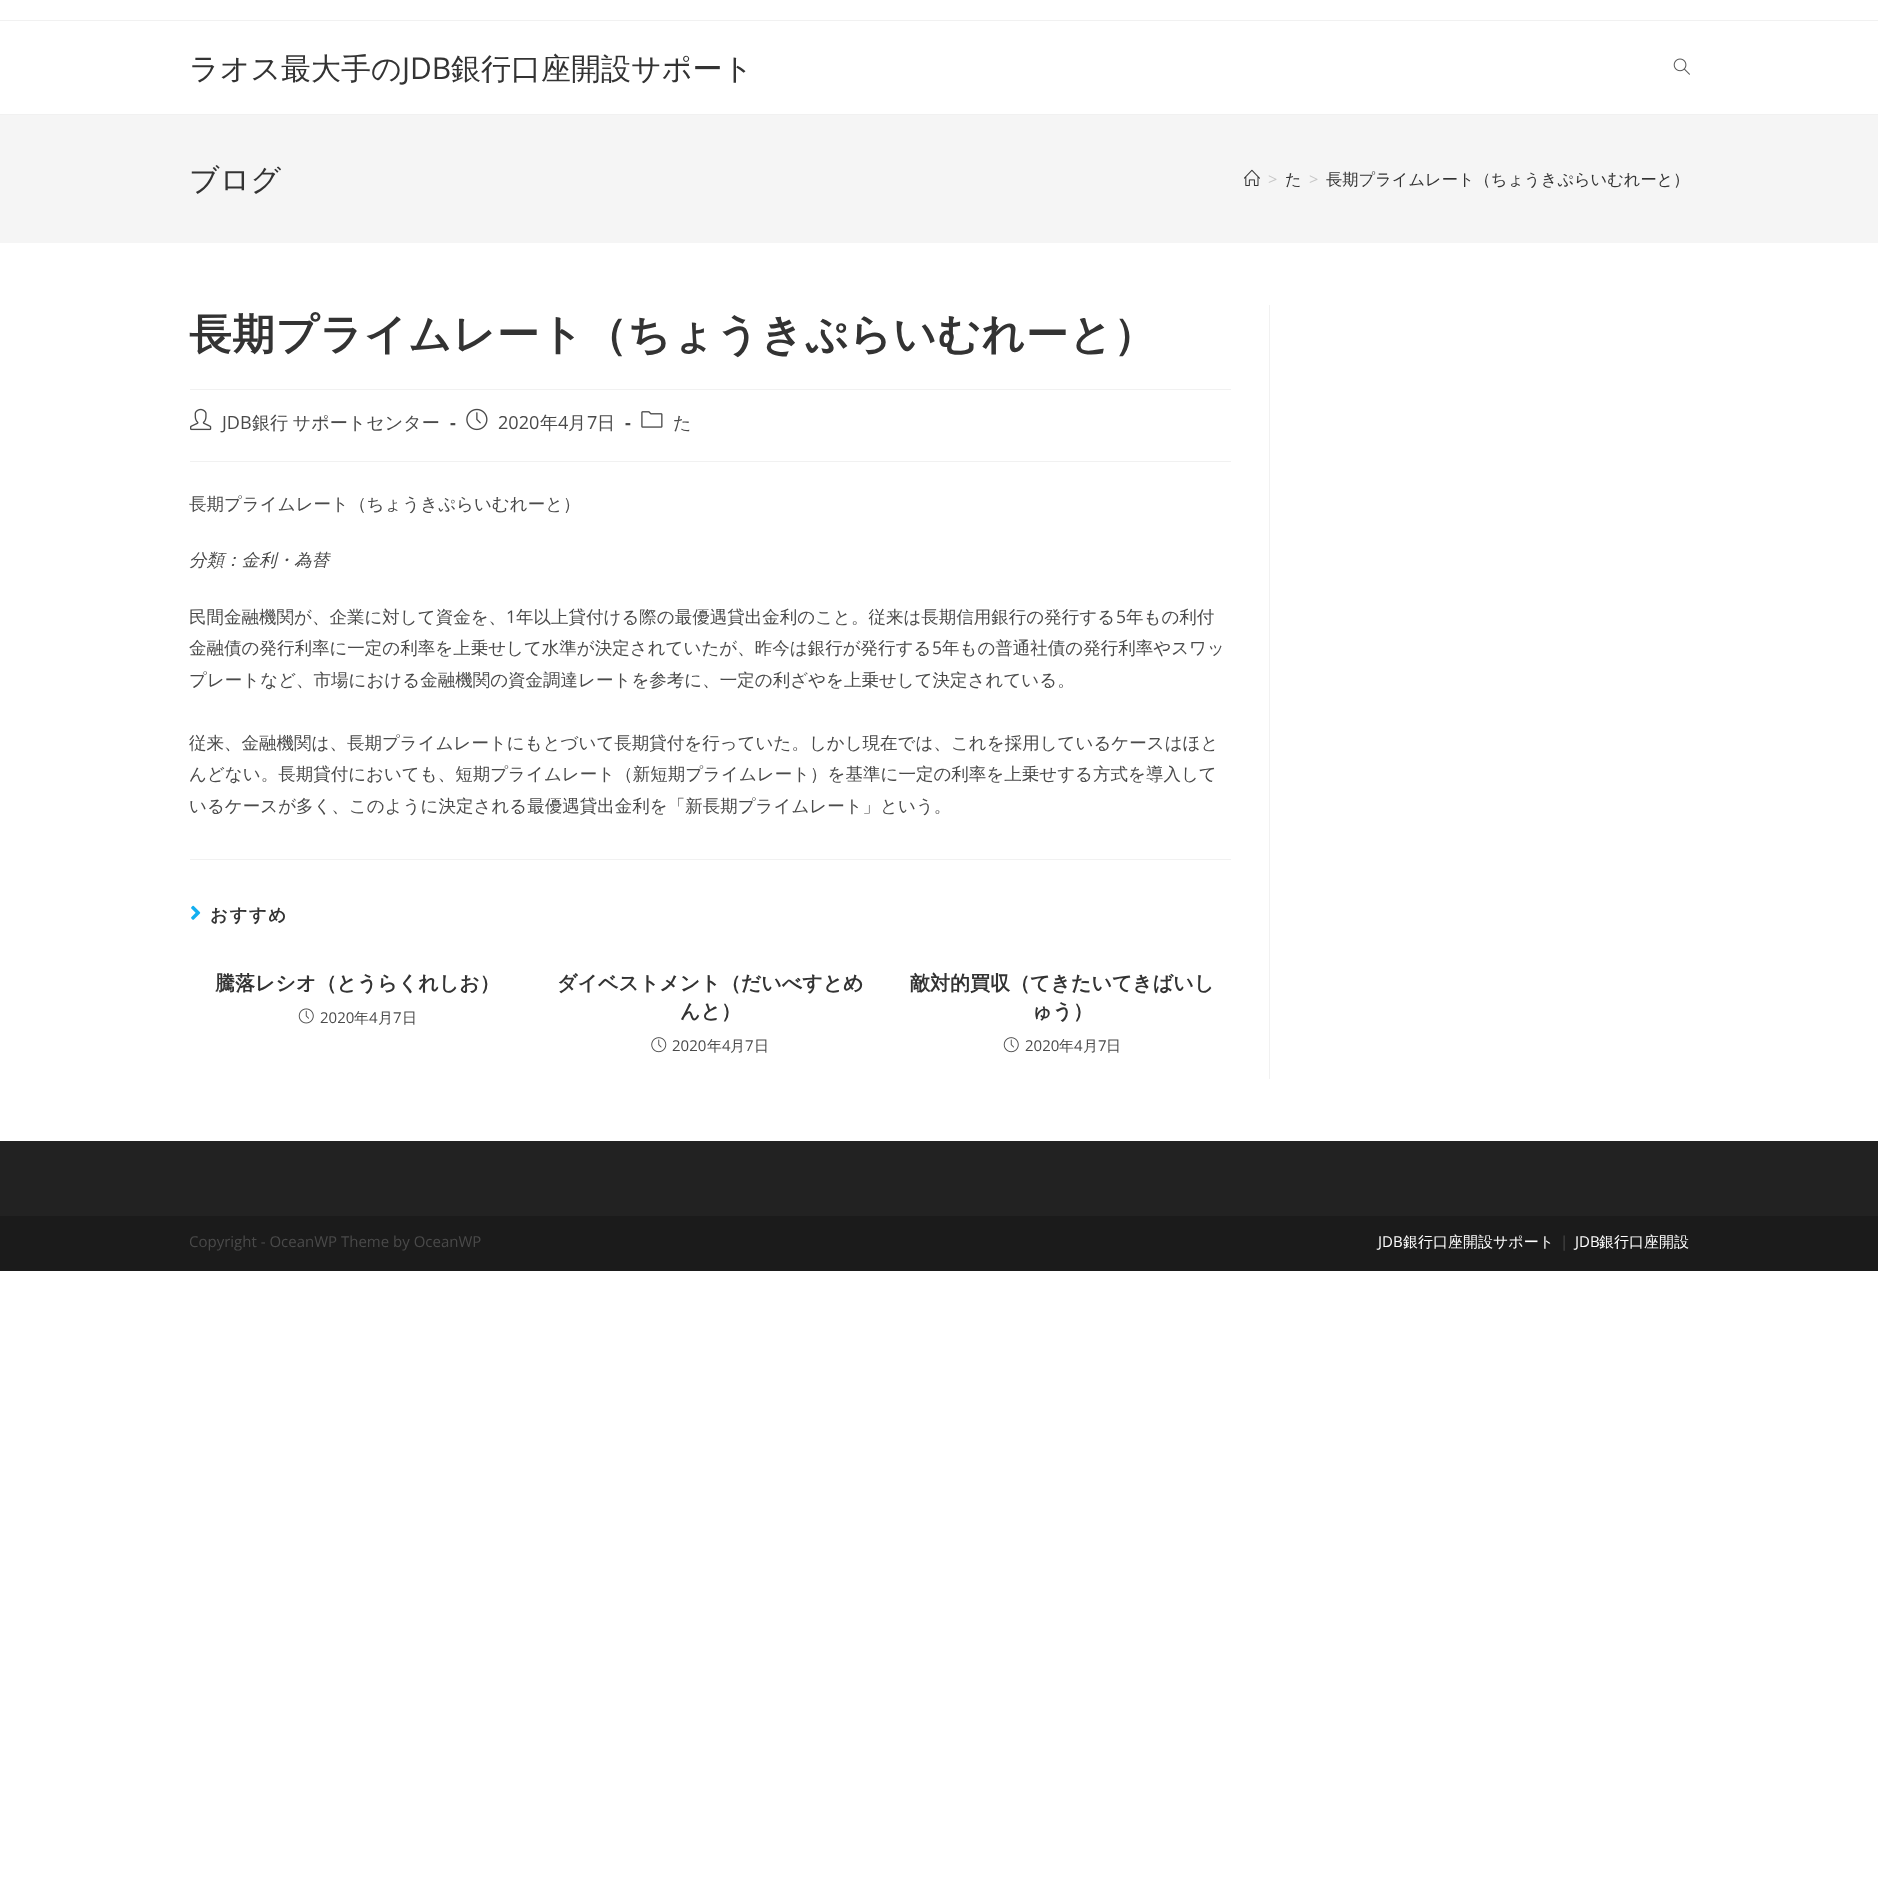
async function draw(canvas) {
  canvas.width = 1878;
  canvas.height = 1886;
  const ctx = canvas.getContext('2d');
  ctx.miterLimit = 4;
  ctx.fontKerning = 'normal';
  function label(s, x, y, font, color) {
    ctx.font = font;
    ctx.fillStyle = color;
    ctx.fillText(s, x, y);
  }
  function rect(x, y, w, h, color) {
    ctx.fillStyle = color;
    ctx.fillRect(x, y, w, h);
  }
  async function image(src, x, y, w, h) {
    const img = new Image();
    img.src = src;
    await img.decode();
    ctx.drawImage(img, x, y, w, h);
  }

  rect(0, 0, 1878, 1886, '#fff');
  rect(0, 20, 1878, 1, '#f1f1f1');
  rect(0, 114, 1878, 1, '#f1f1f1');
  label('ラオス最大手の', 189, 79, '500 30px WenQuanYi Zen Hei', '#333');
  label('JDB', 402, 79, '30px Open Sans', '#333');
  label('銀行口座開設サポート', 451, 79, '500 30px WenQuanYi Zen Hei', '#333');
  await image('assets/img1.png', 1673, 58, 17, 17);
  rect(0, 115, 1878, 128, '#f5f5f5');
  label('ブログ', 189, 190, '500 30px WenQuanYi Zen Hei', '#333');
  await image('assets/img2.png', 1244, 169, 16, 17);
  label('>', 1268, 185, '16.25px Open Sans', '#c6c6c6');
  label('た', 1285, 185, '500 16.25px WenQuanYi Zen Hei', '#333');
  label('>', 1309, 185, '16.25px Open Sans', '#c6c6c6');
  label('長期プライムレート（ちょうきぷらいむれーと）', 1326, 185, '500 16.25px WenQuanYi Zen Hei', '#333');
  rect(1269, 305, 1, 774, '#f1f1f1');
  rect(190, 389, 1041, 1, '#f1f1f1');
  ctx.letterSpacing = '0.75px';
  label('長期プライムレート（ちょうきぷらいむれーと）', 189, 349, 'bold 42.5px WenQuanYi Zen Hei', '#333');
  rect(190, 461, 1041, 1, '#f1f1f1');
  await image('assets/img3.png', 190, 408, 22, 23);
  ctx.letterSpacing = '0px';
  label('JDB', 222, 429, '18.1px Open Sans', '#4a4a4a');
  ctx.wordSpacing = '-1px';
  label('銀行 サポートセンター', 252, 429, '500 18.1px WenQuanYi Zen Hei', '#4a4a4a');
  ctx.wordSpacing = '0px';
  label('-', 450, 429, 'bold 18.1px Open Sans', '#4a4a4a');
  await image('assets/img4.png', 466, 408, 22, 23);
  label('2020', 498, 429, '18.1px Open Sans', '#4a4a4a');
  label('年', 540, 429, '500 18.1px WenQuanYi Zen Hei', '#4a4a4a');
  label('4', 558, 429, '18.1px Open Sans', '#4a4a4a');
  label('月', 568, 429, '500 18.1px WenQuanYi Zen Hei', '#4a4a4a');
  label('7', 587, 429, '18.1px Open Sans', '#4a4a4a');
  label('日', 597, 429, '500 18.1px WenQuanYi Zen Hei', '#4a4a4a');
  label('-', 625, 429, 'bold 18.1px Open Sans', '#4a4a4a');
  await image('assets/img5.png', 641, 411, 22, 17);
  label('た', 673, 429, '500 18.1px WenQuanYi Zen Hei', '#4a4a4a');
  label('長期プライムレート（ちょうきぷらいむれーと）', 189, 510, '500 17.5px WenQuanYi Zen Hei', '#4a4a4a');
  label('分類：金利・為替', 189, 566, 'italic 500 17.5px WenQuanYi Zen Hei', '#4a4a4a');
  label('民間金融機関が、企業に対して資金を、', 189, 623, '500 17.5px WenQuanYi Zen Hei', '#4a4a4a');
  label('1', 506, 623, '17.5px Open Sans', '#4a4a4a');
  label('年以上貸付ける際の最優遇貸出金利のこと。従来は長期信用銀行の発行する', 516, 623, '500 17.5px WenQuanYi Zen Hei', '#4a4a4a');
  label('5', 1116, 623, '17.5px Open Sans', '#4a4a4a');
  label('年もの利付', 1126, 623, '500 17.5px WenQuanYi Zen Hei', '#4a4a4a');
  label('金融債の発行利率に一定の利率を上乗せして水準が決定されていたが、昨今は銀行が発行する', 189, 654, '500 17.5px WenQuanYi Zen Hei', '#4a4a4a');
  label('5', 932, 654, '17.5px Open Sans', '#4a4a4a');
  label('年もの普通社債の発行利率やスワッ', 942, 654, '500 17.5px WenQuanYi Zen Hei', '#4a4a4a');
  label('プレートなど、市場における金融機関の資金調達レートを参考に、一定の利ざやを上乗せして決定されている。', 189, 686, '500 17.5px WenQuanYi Zen Hei', '#4a4a4a');
  label('従来、金融機関は、長期プライムレートにもとづいて長期貸付を行っていた。しかし現在では、これを採用しているケースはほと', 189, 749, '500 17.5px WenQuanYi Zen Hei', '#4a4a4a');
  label('んどない。長期貸付においても、短期プライムレート（新短期プライムレート）を基準に一定の利率を上乗せする方式を導入して', 189, 780, '500 17.5px WenQuanYi Zen Hei', '#4a4a4a');
  label('いるケースが多く、このように決定される最優遇貸出金利を「新長期プライムレート」という。', 189, 812, '500 17.5px WenQuanYi Zen Hei', '#4a4a4a');
  rect(190, 859, 1041, 1, '#f1f1f1');
  await image('assets/img6.png', 191, 905, 10, 15);
  ctx.letterSpacing = '1.5px';
  label('おすすめ', 210, 921, 'bold 17.5px WenQuanYi Zen Hei', '#333');
  ctx.letterSpacing = '0px';
  label('騰落レシオ（とうらくれしお）', 215, 990, 'bold 20px WenQuanYi Zen Hei', '#333');
  await image('assets/img7.png', 298, 1008, 16, 16);
  label('2020', 320, 1023, '15px Open Sans', '#4a4a4a');
  label('年', 354, 1023, '500 15px WenQuanYi Zen Hei', '#4a4a4a');
  label('4', 369, 1023, '15px Open Sans', '#4a4a4a');
  label('月', 378, 1023, '500 15px WenQuanYi Zen Hei', '#4a4a4a');
  label('7', 393, 1023, '15px Open Sans', '#4a4a4a');
  label('日', 402, 1023, '500 15px WenQuanYi Zen Hei', '#4a4a4a');
  label('ダイベストメント（だいべすとめ', 557, 990, 'bold 20px WenQuanYi Zen Hei', '#333');
  label('んと）', 680, 1018, 'bold 20px WenQuanYi Zen Hei', '#333');
  await image('assets/img8.png', 651, 1037, 16, 16);
  label('2020', 672, 1051, '15px Open Sans', '#4a4a4a');
  label('年', 707, 1051, '500 15px WenQuanYi Zen Hei', '#4a4a4a');
  label('4', 722, 1051, '15px Open Sans', '#4a4a4a');
  label('月', 730, 1051, '500 15px WenQuanYi Zen Hei', '#4a4a4a');
  label('7', 745, 1051, '15px Open Sans', '#4a4a4a');
  label('日', 754, 1051, '500 15px WenQuanYi Zen Hei', '#4a4a4a');
  label('敵対的買収（てきたいてきばいし', 910, 990, 'bold 20px WenQuanYi Zen Hei', '#333');
  label('ゅう）', 1032, 1018, 'bold 20px WenQuanYi Zen Hei', '#333');
  await image('assets/img9.png', 1003, 1037, 16, 16);
  label('2020', 1025, 1051, '15px Open Sans', '#4a4a4a');
  label('年', 1059, 1051, '500 15px WenQuanYi Zen Hei', '#4a4a4a');
  label('4', 1074, 1051, '15px Open Sans', '#4a4a4a');
  label('月', 1083, 1051, '500 15px WenQuanYi Zen Hei', '#4a4a4a');
  label('7', 1098, 1051, '15px Open Sans', '#4a4a4a');
  label('日', 1106, 1051, '500 15px WenQuanYi Zen Hei', '#4a4a4a');
  rect(0, 1141, 1878, 75, '#222');
  rect(0, 1216, 1878, 55, '#1b1b1b');
  label('Copyright - OceanWP Theme by OceanWP', 189, 1247, '15px Open Sans', '#4a4a4a');
  label('JDB', 1378, 1247, '15px Open Sans', '#fff');
  label('銀行口座開設サポート', 1403, 1247, '500 15px WenQuanYi Zen Hei', '#fff');
  label('|', 1560, 1247, '15px Open Sans', '#4a4a4a');
  label('JDB', 1575, 1247, '15px Open Sans', '#fff');
  label('銀行口座開設', 1599, 1247, '500 15px WenQuanYi Zen Hei', '#fff');
}

draw(document.querySelector('canvas'));
